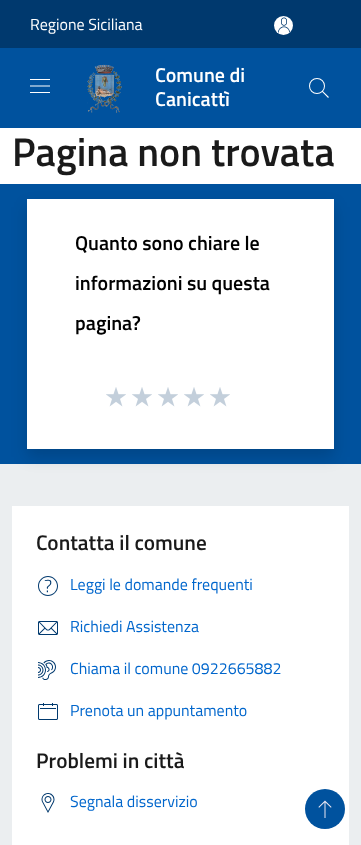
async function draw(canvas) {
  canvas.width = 361;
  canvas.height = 845;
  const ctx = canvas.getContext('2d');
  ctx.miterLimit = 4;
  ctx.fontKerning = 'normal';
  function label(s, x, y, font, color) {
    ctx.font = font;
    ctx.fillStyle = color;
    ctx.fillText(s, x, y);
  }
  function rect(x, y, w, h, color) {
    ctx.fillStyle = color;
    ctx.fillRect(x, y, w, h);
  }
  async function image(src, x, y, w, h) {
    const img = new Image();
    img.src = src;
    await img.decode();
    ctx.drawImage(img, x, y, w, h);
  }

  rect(0, 0, 361, 845, '#fff');
  rect(0, 0, 361, 48, '#00396e');
  label('Regione Siciliana', 30, 30, '16px Titillium Web', '#fff');
  ctx.beginPath();
  ctx.arc(283.5, 25.5, 9.5, 0, 2 * Math.PI);
  ctx.fill();
  await image('assets/img1.png', 278, 17, 12, 16);
  rect(0, 48, 361, 80, '#00529e');
  await image('assets/img2.png', 30, 79, 20, 14);
  await image('assets/img3.png', 87, 64, 35, 49);
  label('Comune di', 155, 82, '600 20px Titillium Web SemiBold', '#fff');
  label('Canicattì', 155, 106, '600 20px Titillium Web SemiBold', '#fff');
  await image('assets/img4.png', 309, 78, 20, 20);
  label('Pagina non trovata', 12, 166, '600 40px Titillium Web SemiBold', '#1a1a1a');
  rect(0, 184, 361, 280, '#00529e');
  rect(0, 464, 361, 381, '#ebeef0');
  ctx.fillStyle = '#00000026';
  ctx.filter = 'blur(8px)';
  ctx.beginPath();
  ctx.rect(27, 207, 307, 250);
  ctx.fill();
  ctx.filter = 'none';
  rect(27, 199, 307, 250, '#fff');
  label('Quanto sono chiare le', 75, 250, '600 20px Titillium Web SemiBold', '#000');
  label('informazioni su questa', 75, 290, '600 20px Titillium Web SemiBold', '#000');
  label('pagina?', 75, 330, '600 20px Titillium Web SemiBold', '#000');
  await image('assets/img5.png', 106, 387, 20, 20);
  await image('assets/img5.png', 132, 387, 20, 20);
  await image('assets/img5.png', 158, 387, 20, 20);
  await image('assets/img5.png', 184, 387, 20, 20);
  await image('assets/img5.png', 210, 387, 20, 20);
  rect(12, 506, 337, 339, '#fff');
  label('Contatta il comune', 36, 550, '600 21.25px Titillium Web SemiBold', '#1a1a1a');
  await image('assets/img6.png', 38, 576, 20, 20);
  label('Leggi le domande frequenti', 70, 590, '16px Titillium Web', '#06c');
  await image('assets/img7.png', 38, 621, 20, 14);
  label('Richiedi Assistenza', 70, 632, '16px Titillium Web', '#06c');
  await image('assets/img8.png', 38, 660, 18, 20);
  label('Chiama il comune 0922665882', 70, 674, '16px Titillium Web', '#06c');
  await image('assets/img9.png', 38, 703, 20, 17);
  label('Prenota un appuntamento', 70, 716, '16px Titillium Web', '#06c');
  label('Problemi in città', 36, 768, '600 21.25px Titillium Web SemiBold', '#1a1a1a');
  await image('assets/img10.png', 41, 793, 14, 20);
  label('Segnala disservizio', 70, 807, '16px Titillium Web', '#06c');
  ctx.fillStyle = '#00529e';
  ctx.beginPath();
  ctx.arc(325, 809, 20, 0, 2 * Math.PI);
  ctx.fill();
  await image('assets/img11.png', 318, 800, 14, 18);
}

draw(document.querySelector('canvas'));
